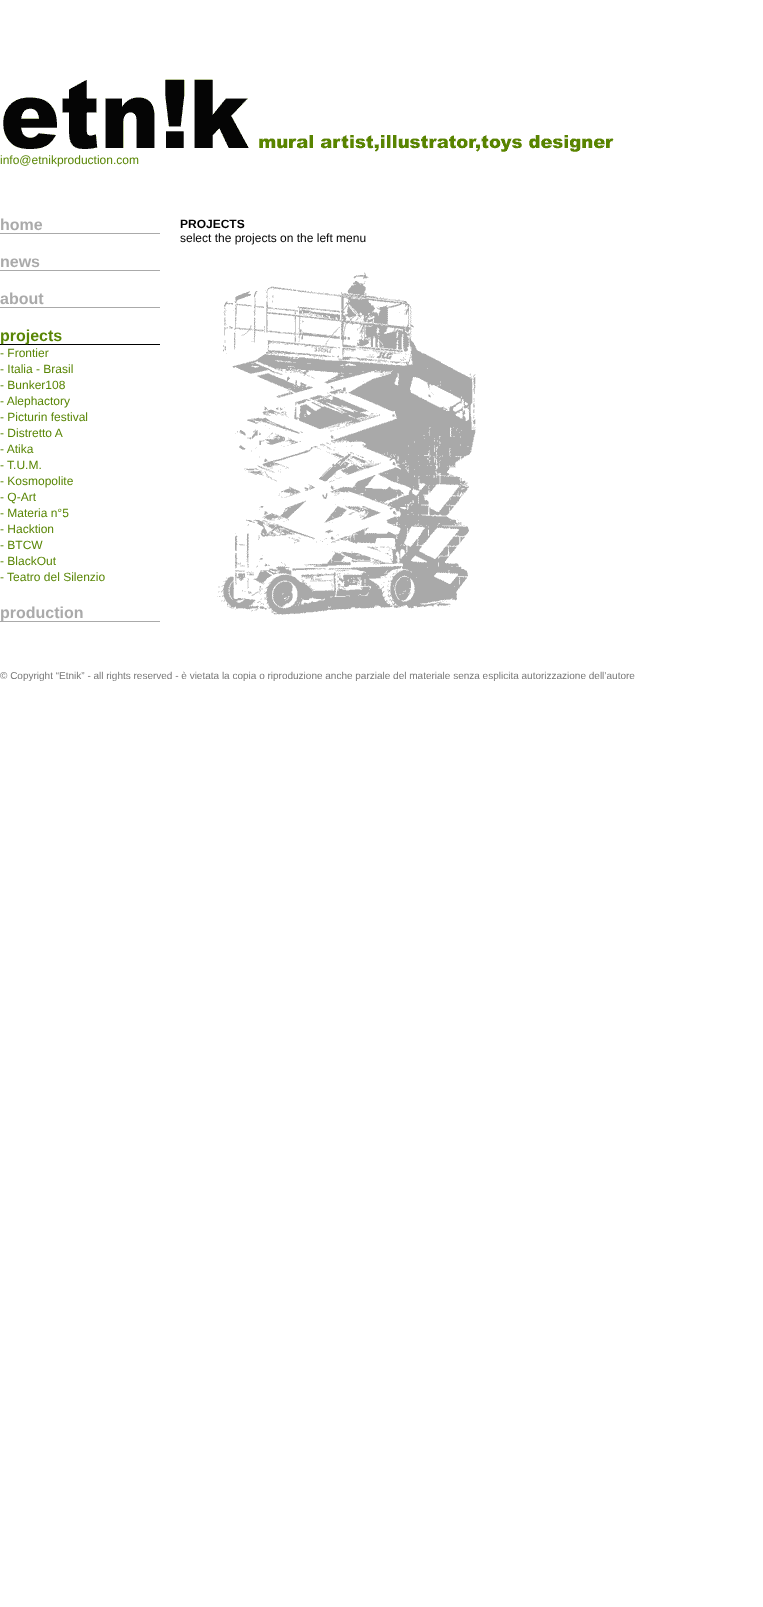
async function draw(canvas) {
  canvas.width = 763;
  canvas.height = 1607;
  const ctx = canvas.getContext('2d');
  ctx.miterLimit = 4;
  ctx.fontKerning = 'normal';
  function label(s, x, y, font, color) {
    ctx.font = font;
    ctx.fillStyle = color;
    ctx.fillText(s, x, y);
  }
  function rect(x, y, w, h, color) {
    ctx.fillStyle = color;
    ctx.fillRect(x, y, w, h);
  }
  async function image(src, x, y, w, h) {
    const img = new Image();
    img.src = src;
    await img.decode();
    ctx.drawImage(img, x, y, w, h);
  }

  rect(0, 0, 763, 1607, '#fff');
  await image('assets/img1.png', 3, 79, 611, 73);
  label('info@etnikproduction.com', 0, 164, '12px Liberation Sans', '#598605');
  label('home', 0, 230, 'bold 16px Liberation Sans', '#aaa');
  rect(0, 233, 160, 1, '#aaa');
  label('news', 0, 267, 'bold 16px Liberation Sans', '#aaa');
  rect(0, 270, 160, 1, '#aaa');
  label('about', 0, 304, 'bold 16px Liberation Sans', '#aaa');
  rect(0, 307, 160, 1, '#aaa');
  rect(0, 344, 160, 1, '#000');
  label('projects', 0, 341, 'bold 16px Liberation Sans', '#598605');
  label('- Frontier', 0, 357, '12px Liberation Sans', '#598605');
  label('- Italia - Brasil', 0, 373, '12px Liberation Sans', '#598605');
  label('- Bunker108', 0, 389, '12px Liberation Sans', '#598605');
  label('- Alephactory', 0, 405, '12px Liberation Sans', '#598605');
  label('- Picturin festival', 0, 421, '12px Liberation Sans', '#598605');
  label('- Distretto A', 0, 437, '12px Liberation Sans', '#598605');
  label('- Atika', 0, 453, '12px Liberation Sans', '#598605');
  label('- T.U.M.', 0, 469, '12px Liberation Sans', '#598605');
  label('- Kosmopolite', 0, 485, '12px Liberation Sans', '#598605');
  label('- Q-Art', 0, 501, '12px Liberation Sans', '#598605');
  label('- Materia n°5', 0, 517, '12px Liberation Sans', '#598605');
  label('- Hacktion', 0, 533, '12px Liberation Sans', '#598605');
  label('- BTCW', 0, 549, '12px Liberation Sans', '#598605');
  label('- BlackOut', 0, 565, '12px Liberation Sans', '#598605');
  label('- Teatro del Silenzio', 0, 581, '12px Liberation Sans', '#598605');
  rect(0, 621, 160, 1, '#aaa');
  label('production', 0, 618, 'bold 16px Liberation Sans', '#aaa');
  label('PROJECTS', 180, 228, 'bold 12px Liberation Sans', '#000');
  label('select the projects on the left menu', 180, 242, '12px Liberation Sans', '#000');
  await image('assets/img2.png', 217, 272, 259, 343);
  label('© Copyright “Etnik” - all rights reserved - è vietata la copia o riproduzione anche parziale del materiale senza esplicita autorizzazione dell’autore', 0, 679, '10px Liberation Sans', '#777');
}

draw(document.querySelector('canvas'));
